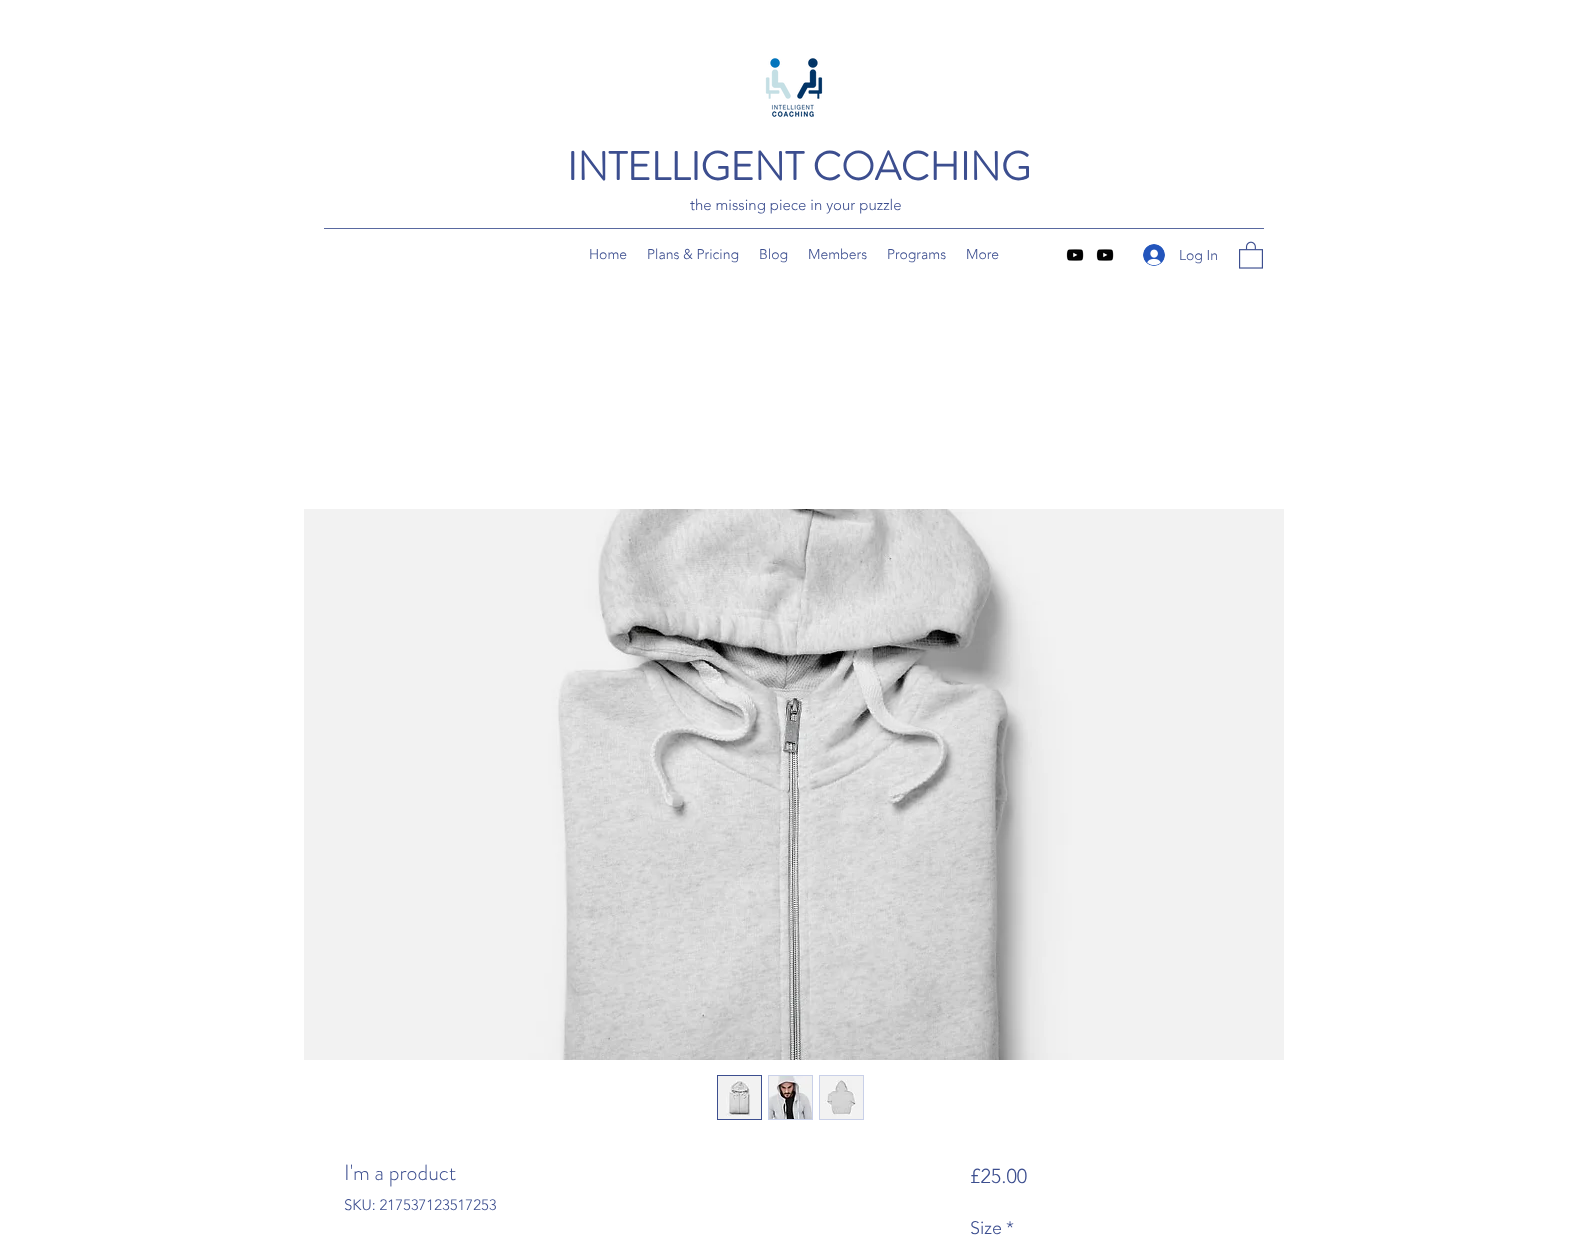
async function draw(canvas) {
  canvas.width = 1587;
  canvas.height = 1239;
  const ctx = canvas.getContext('2d');
  ctx.miterLimit = 4;
  ctx.fontKerning = 'normal';
  function label(s, x, y, font, color) {
    ctx.font = font;
    ctx.fillStyle = color;
    ctx.fillText(s, x, y);
  }
  function rect(x, y, w, h, color) {
    ctx.fillStyle = color;
    ctx.fillRect(x, y, w, h);
  }
  async function image(src, x, y, w, h) {
    const img = new Image();
    img.src = src;
    await img.decode();
    ctx.drawImage(img, x, y, w, h);
  }

  rect(0, 0, 1587, 1239, '#fff');
  await image('assets/img1.png', 765, 58, 58, 59);
  label('INTELLIGENT COACHING', 567, 180, 'bold 40px "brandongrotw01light"', '#3c4e8f');
  label('the missing piece in your puzzle', 690, 210, '300 15px "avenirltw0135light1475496"', '#3c4e8f');
  rect(324, 228, 940, 1, '#5969a0');
  label('Home', 589, 259, '300 14px "avenirltw0135light1475496"', '#3c4e8f');
  label('Plans & Pricing', 647, 259, '300 14px "avenirltw0135light1475496"', '#3c4e8f');
  label('Blog', 759, 259, '300 14px "avenirltw0135light1475496"', '#3c4e8f');
  label('Members', 808, 259, '300 14px "avenirltw0135light1475496"', '#3c4e8f');
  label('Programs', 887, 259, '300 14px "avenirltw0135light1475496"', '#3c4e8f');
  label('More', 966, 259, '300 14px "avenirltw0135light1475496"', '#3c4e8f');
  await image('assets/img2.png', 1066, 249, 18, 12);
  await image('assets/img2.png', 1096, 249, 18, 12);
  await image('assets/img3.png', 1143, 244, 22, 22);
  label('Log In', 1179, 260, '300 14px "avenirltw0135light1475496"', '#3c4e8f');
  await image('assets/img4.png', 1239, 241, 24, 28);
  await image('assets/img5.png', 304, 509, 980, 551);
  ctx.strokeStyle = '#3c4e8f';
  ctx.strokeRect(717.5, 1075.5, 44, 44);
  await image('assets/img6.png', 718, 1076, 43, 43);
  ctx.strokeStyle = '#c9d0e8';
  ctx.strokeRect(768.5, 1075.5, 44, 44);
  await image('assets/img7.png', 769, 1076, 43, 43);
  ctx.strokeRect(819.5, 1075.5, 44, 44);
  await image('assets/img8.png', 820, 1076, 43, 43);
  label('I\'m a product', 344, 1180, '300 22px "brandongrotw01light"', '#3c4e8f');
  label('SKU: 217537123517253', 344, 1210, '300 15px "avenirltw0135light1475496"', '#3c4e8f');
  label('£25.00', 970, 1183, '300 20px "avenirltw0135light1475496"', '#3c4e8f');
  label('Size', 970, 1234, '300 18px "avenirltw0135light1475496"', '#3c4e8f');
  label('*', 1006, 1234, '300 18px "avenirltw0135light1475496"', '#3c4e8f');
}

draw(document.querySelector('canvas'));
